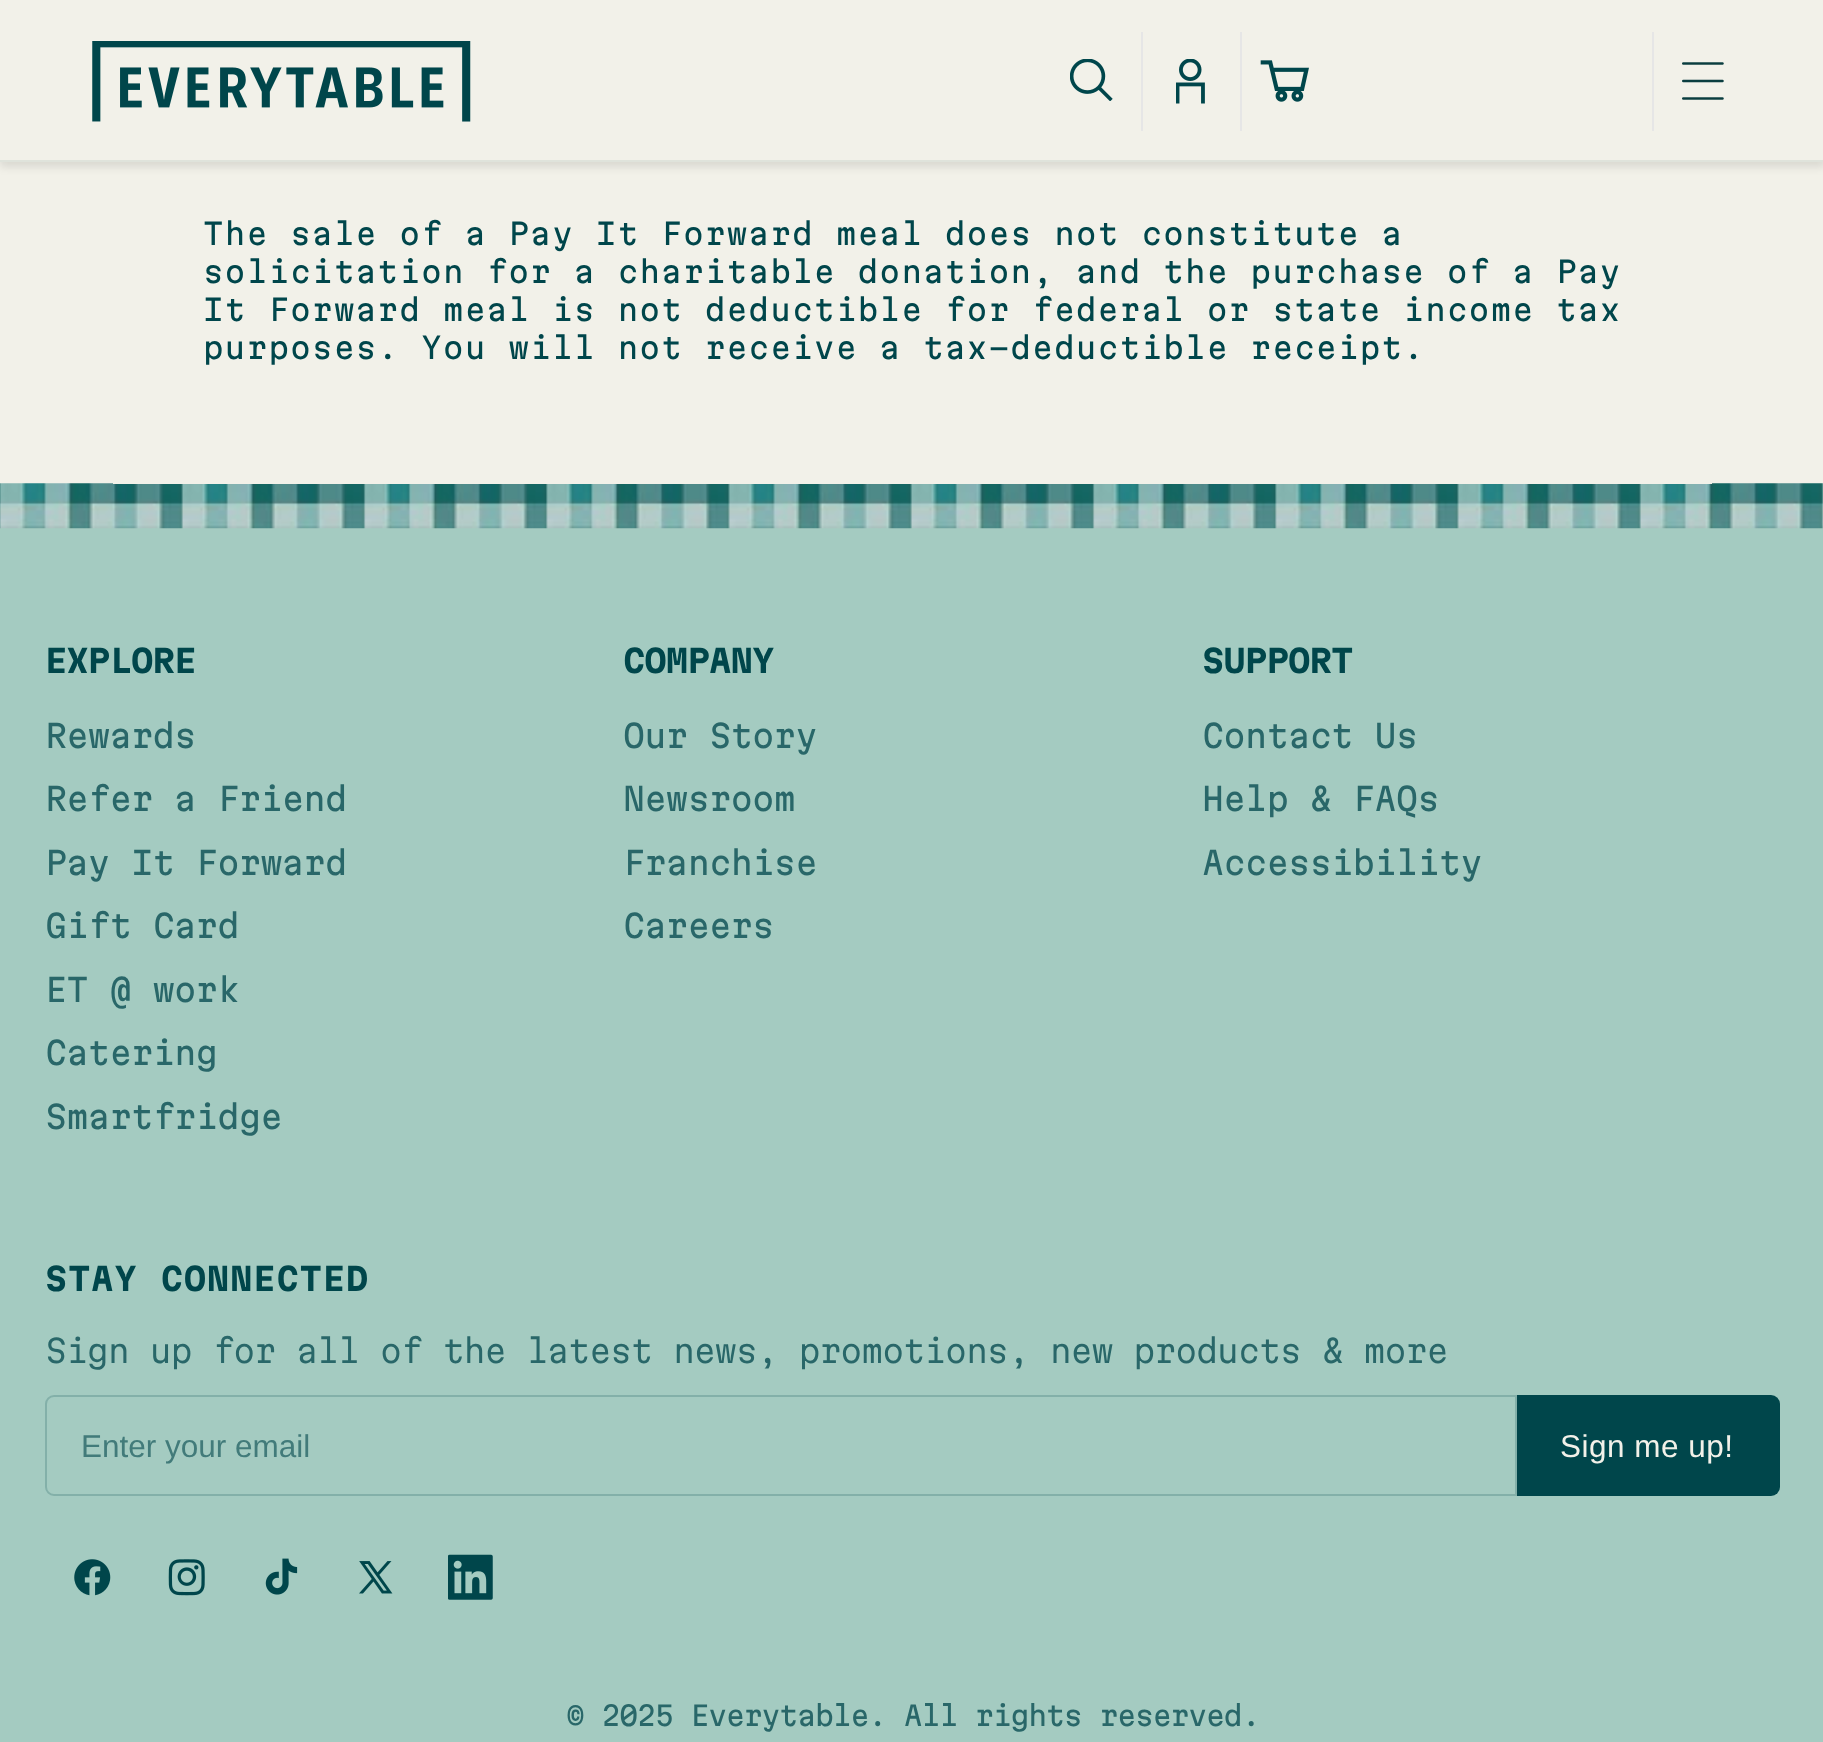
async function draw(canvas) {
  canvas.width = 1823;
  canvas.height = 1742;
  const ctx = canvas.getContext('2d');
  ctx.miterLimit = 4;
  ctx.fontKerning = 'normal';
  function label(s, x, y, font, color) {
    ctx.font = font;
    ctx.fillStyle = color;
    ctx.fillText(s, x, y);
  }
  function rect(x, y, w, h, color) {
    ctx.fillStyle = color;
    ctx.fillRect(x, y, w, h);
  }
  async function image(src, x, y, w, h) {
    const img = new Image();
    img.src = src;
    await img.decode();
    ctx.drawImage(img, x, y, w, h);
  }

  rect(0, 0, 1823, 1742, '#f2f1e9');
  ctx.fillStyle = '#0000001a';
  ctx.filter = 'blur(4.5px)';
  ctx.beginPath();
  ctx.rect(0, 5, 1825, 162);
  ctx.fill();
  ctx.filter = 'none';
  rect(0, 0, 1823, 160, '#f2f1e9');
  rect(0, 160, 1823, 2, '#dfe3db');
  await image('assets/img1.png', 92, 41, 379, 81);
  rect(1141, 32, 2, 99, '#e6e6e6');
  await image('assets/img2.png', 1070, 59, 43, 42);
  rect(1240, 32, 2, 99, '#e6e6e6');
  await image('assets/img3.png', 1176, 59, 29, 45);
  await image('assets/img4.png', 1260, 60, 49, 42);
  rect(1652, 32, 2, 99, '#e6e6e6');
  await image('assets/img5.png', 1682, 62, 42, 38);
  rect(0, 528, 1823, 1214, '#a4cbc1');
  await image('assets/img6.png', 0, 483, 1823, 46);
  rect(113, 483, 1599, 1, '#f2f1e9');
  ctx.letterSpacing = '1.35px';
  label('The sale of a Pay It Forward meal does not constitute a', 203, 245, '29.25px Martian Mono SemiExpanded', '#00464b');
  label('solicitation for a charitable donation, and the purchase of a Pay', 203, 283, '29.25px Martian Mono SemiExpanded', '#00464b');
  label('It Forward meal is not deductible for federal or state income tax', 203, 321, '29.25px Martian Mono SemiExpanded', '#00464b');
  label('purposes. You will not receive a tax-deductible receipt.', 203, 359, '29.25px Martian Mono SemiExpanded', '#00464b');
  ctx.letterSpacing = '-0.5px';
  label('EXPLORE', 45, 673, 'bold 31.5px Martian Mono SemiExpanded', '#00464b');
  label('Rewards', 45, 748, '31.5px Martian Mono SemiExpanded', '#296769');
  label('Refer a Friend', 45, 811, '31.5px Martian Mono SemiExpanded', '#296769');
  label('Pay It Forward', 45, 875, '31.5px Martian Mono SemiExpanded', '#296769');
  label('Gift Card', 45, 938, '31.5px Martian Mono SemiExpanded', '#296769');
  label('ET @ work', 45, 1002, '31.5px Martian Mono SemiExpanded', '#296769');
  label('Catering', 45, 1065, '31.5px Martian Mono SemiExpanded', '#296769');
  label('Smartfridge', 45, 1129, '31.5px Martian Mono SemiExpanded', '#296769');
  label('COMPANY', 623, 673, 'bold 31.5px Martian Mono SemiExpanded', '#00464b');
  label('Our Story', 623, 748, '31.5px Martian Mono SemiExpanded', '#296769');
  label('Newsroom', 623, 811, '31.5px Martian Mono SemiExpanded', '#296769');
  label('Franchise', 623, 875, '31.5px Martian Mono SemiExpanded', '#296769');
  label('Careers', 623, 938, '31.5px Martian Mono SemiExpanded', '#296769');
  label('SUPPORT', 1202, 673, 'bold 31.5px Martian Mono SemiExpanded', '#00464b');
  label('Contact Us', 1202, 748, '31.5px Martian Mono SemiExpanded', '#296769');
  label('Help & FAQs', 1202, 811, '31.5px Martian Mono SemiExpanded', '#296769');
  label('Accessibility', 1202, 875, '31.5px Martian Mono SemiExpanded', '#296769');
  ctx.letterSpacing = '1.1px';
  label('STAY CONNECTED', 45, 1291, 'bold 31.5px Martian Mono SemiExpanded', '#00464b');
  ctx.letterSpacing = '-1.12px';
  label('Sign up for all of the latest news, promotions, new products & more', 45, 1363, '300 31.5px Martian Mono SemiExpanded', '#296769');
  ctx.beginPath();
  ctx.roundRect(46, 1396, 1470, 99, [8, 0, 0, 8]);
  ctx.strokeStyle = '#83b0a9';
  ctx.lineWidth = 2;
  ctx.stroke();
  ctx.letterSpacing = '0px';
  label('Enter your email', 81, 1457, '31.5px Liberation Sans', '#427b7a');
  ctx.fillStyle = '#00464b';
  ctx.beginPath();
  ctx.roundRect(1517, 1395, 263, 101, [0, 9, 9, 0]);
  ctx.fill();
  ctx.letterSpacing = '0.5px';
  label('Sign me up!', 1560, 1457, '31.5px Liberation Sans', '#f2f1e9');
  await image('assets/img7.png', 74, 1559, 37, 37);
  await image('assets/img8.png', 168, 1559, 37, 37);
  await image('assets/img9.png', 265, 1558, 33, 37);
  await image('assets/img10.png', 359, 1561, 34, 33);
  await image('assets/img11.png', 448, 1554, 45, 46);
  ctx.letterSpacing = '-1.12px';
  label('© 2025 Everytable. All rights reserved.', 566, 1726, '27px Martian Mono SemiExpanded', '#296769');
}

draw(document.querySelector('canvas'));
